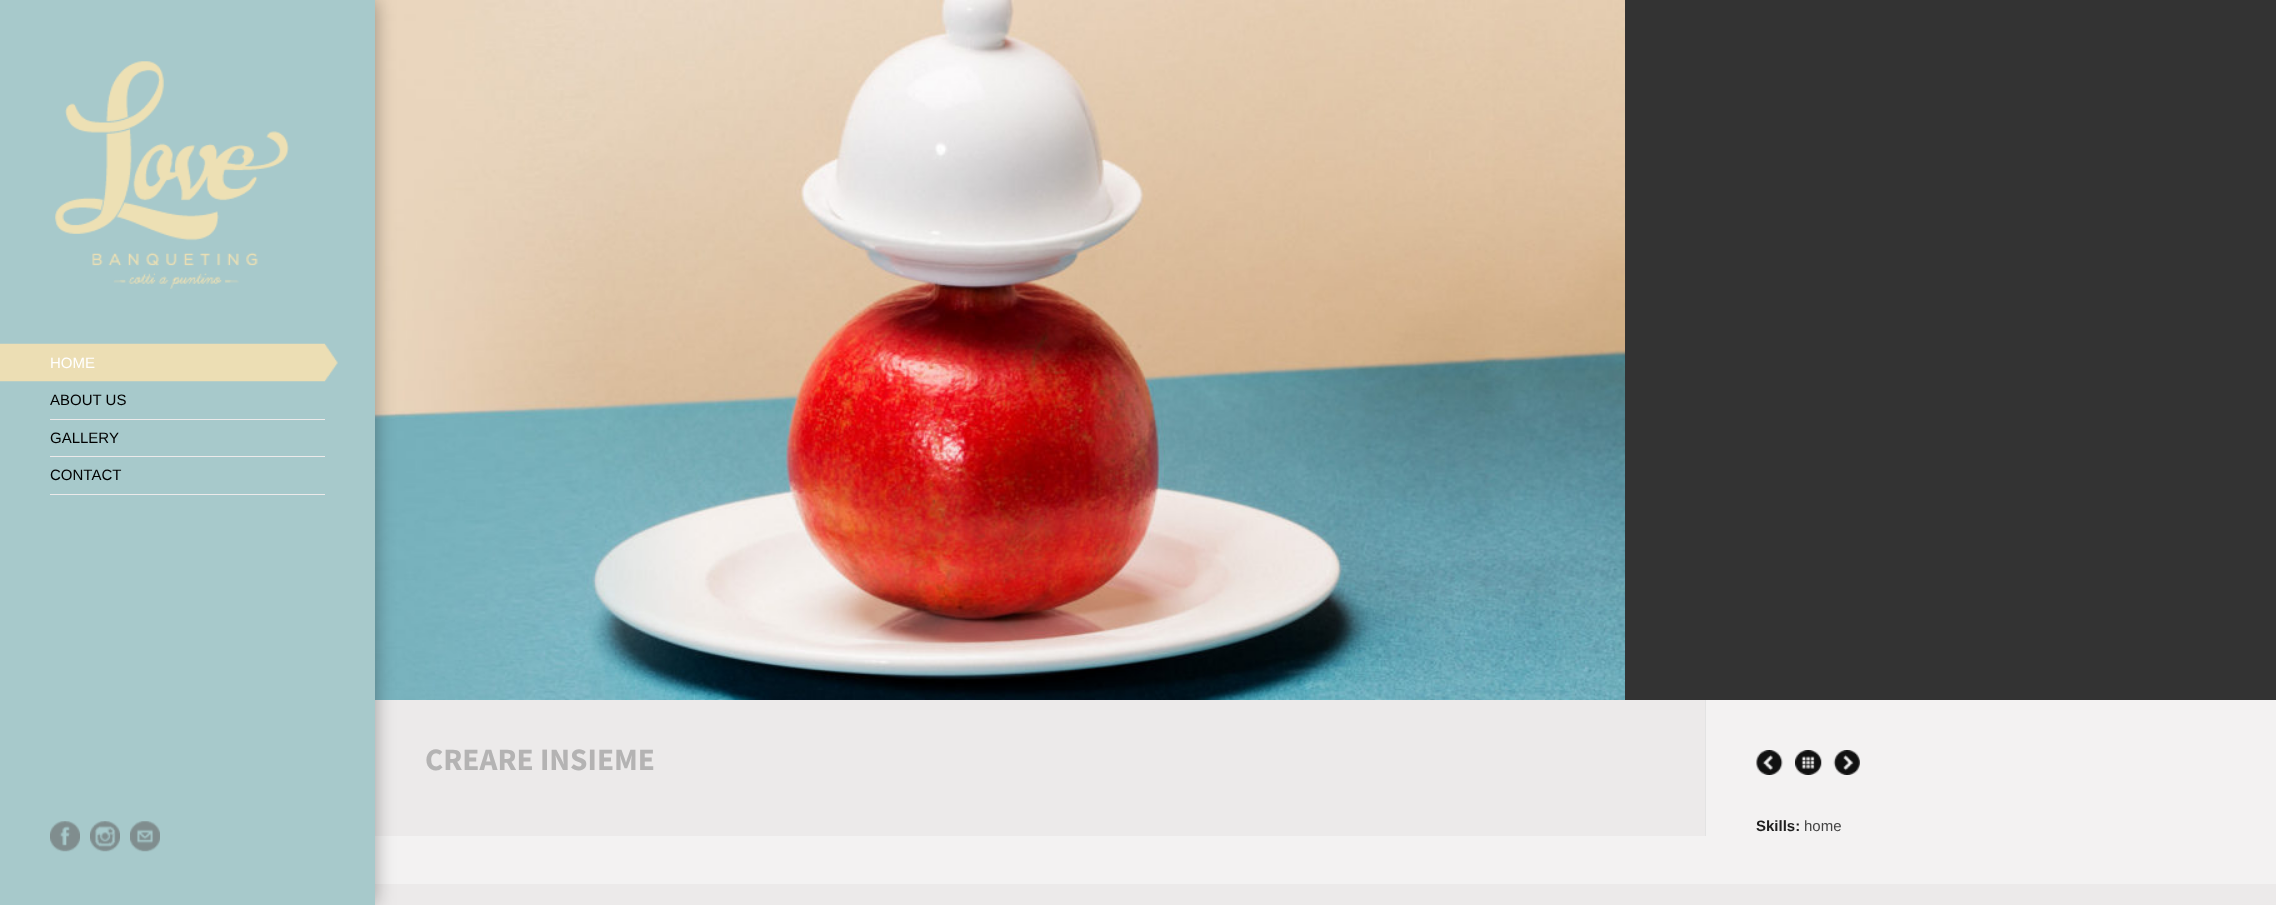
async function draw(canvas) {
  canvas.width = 2276;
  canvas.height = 905;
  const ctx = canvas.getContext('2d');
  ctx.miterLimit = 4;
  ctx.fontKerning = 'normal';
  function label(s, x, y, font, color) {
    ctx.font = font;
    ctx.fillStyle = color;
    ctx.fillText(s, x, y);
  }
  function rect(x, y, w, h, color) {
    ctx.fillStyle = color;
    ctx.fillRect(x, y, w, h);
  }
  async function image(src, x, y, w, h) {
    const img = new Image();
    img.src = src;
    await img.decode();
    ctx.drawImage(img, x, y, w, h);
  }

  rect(0, 0, 2276, 905, '#eceaea');
  await image('assets/img6.png', 375, 0, 1250, 700);
  rect(375, 700, 1901, 184, '#f3f2f2');
  rect(375, 700, 1330, 136, '#eceaea');
  ctx.fillStyle = '#00000059';
  ctx.filter = 'blur(9.5px)';
  ctx.beginPath();
  ctx.rect(0, 0, 375, 905);
  ctx.fill();
  ctx.filter = 'none';
  rect(0, 0, 375, 905, '#a7c9cb');
  await image('assets/img1.png', 55, 61, 234, 228);
  await image('assets/img2.png', 0, 343, 338, 39);
  label('HOME', 50, 368, '15px Liberation Sans', '#fff');
  rect(50, 419, 275, 1, '#eceaea');
  label('ABOUT US', 50, 405, '15px Liberation Sans', '#000');
  rect(50, 456, 275, 1, '#eceaea');
  label('GALLERY', 50, 443, '15px Liberation Sans', '#000');
  rect(50, 494, 275, 1, '#eceaea');
  label('CONTACT', 50, 480, '15px Liberation Sans', '#000');
  await image('assets/img3.png', 50, 821, 30, 31);
  await image('assets/img4.png', 90, 821, 30, 31);
  await image('assets/img5.png', 130, 821, 30, 31);
  rect(1625, 0, 651, 700, '#333');
  rect(1705, 700, 1, 136, '#e3e3e3');
  label('CREARE INSIEME', 425, 770, 'bold 31.25px Source Sans Pro', '#b4b3b3');
  await image('assets/img7.png', 1756, 750, 27, 25);
  await image('assets/img8.png', 1795, 750, 27, 25);
  await image('assets/img9.png', 1833, 750, 27, 25);
  label('Skills:', 1756, 831, 'bold 15px Liberation Sans', '#1f1f1f');
  label('home', 1804, 831, '15px Liberation Sans', '#444');
}

draw(document.querySelector('canvas'));
